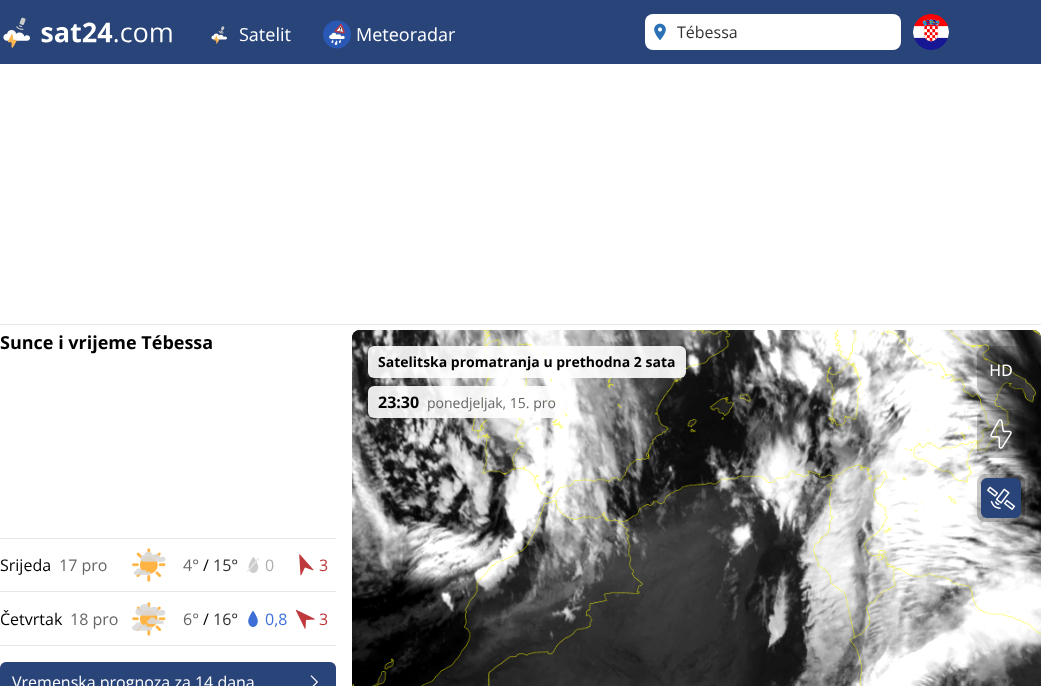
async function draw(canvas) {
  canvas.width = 1041;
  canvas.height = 686;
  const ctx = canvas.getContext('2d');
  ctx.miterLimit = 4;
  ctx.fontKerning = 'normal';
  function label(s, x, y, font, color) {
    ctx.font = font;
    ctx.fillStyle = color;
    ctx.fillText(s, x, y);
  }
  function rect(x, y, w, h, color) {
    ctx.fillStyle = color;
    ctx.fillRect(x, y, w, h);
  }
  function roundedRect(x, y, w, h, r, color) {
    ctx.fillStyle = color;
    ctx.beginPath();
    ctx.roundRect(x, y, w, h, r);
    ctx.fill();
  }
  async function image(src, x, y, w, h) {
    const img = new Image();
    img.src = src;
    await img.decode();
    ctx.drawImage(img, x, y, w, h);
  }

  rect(0, 0, 1041, 686, '#fff');
  rect(0, 0, 1041, 64, '#294479');
  await image('assets/img1.png', 3, 17, 169, 31);
  await image('assets/img2.png', 211, 26, 17, 18);
  label('Satelit', 239, 41, '18px Open Sans', '#fff');
  await image('assets/img3.png', 323, 20, 28, 29);
  label('Meteoradar', 356, 41, '18px Open Sans', '#fff');
  roundedRect(645, 14, 256, 36, 8, '#fff');
  await image('assets/img4.png', 654, 23, 12, 18);
  label('Tébessa', 677, 38, '16px Open Sans', '#333');
  await image('assets/img5.png', 913, 14, 36, 36);
  rect(0, 324, 1041, 1, '#e5e7eb');
  label('Sunce i vrijeme Tébessa', 0, 349, 'bold 18px Open Sans', '#000');
  rect(0, 538, 336, 1, '#e5e7eb');
  rect(0, 591, 336, 1, '#e5e7eb');
  label('Srijeda', 0, 571, '16px Open Sans', '#000');
  label('17 pro', 59, 571, '16px Open Sans', '#666');
  await image('assets/img6.png', 132, 548, 34, 34);
  label('4°', 183, 571, '16px Open Sans', '#666');
  label('/', 203, 571, '16px Open Sans', '#000');
  label('15°', 213, 571, '16px Open Sans', '#333');
  await image('assets/img7.png', 247, 557, 12, 16);
  label('0', 265, 571, '16px Open Sans', '#aeaeae');
  await image('assets/img8.png', 299, 554, 15, 22);
  label('3', 319, 571, '16px Open Sans', '#bf383b');
  rect(0, 645, 336, 1, '#e5e7eb');
  label('Četvrtak', 0, 625, '16px Open Sans', '#000');
  label('18 pro', 70, 625, '16px Open Sans', '#666');
  await image('assets/img9.png', 132, 602, 34, 34);
  label('6°', 183, 625, '16px Open Sans', '#666');
  label('/', 203, 625, '16px Open Sans', '#000');
  label('16°', 213, 625, '16px Open Sans', '#333');
  await image('assets/img10.png', 248, 611, 10, 16);
  label('0,8', 265, 625, '16px Open Sans', '#3d6fd7');
  await image('assets/img11.png', 295, 609, 20, 20);
  label('3', 319, 625, '16px Open Sans', '#bf383b');
  roundedRect(0, 662, 336, 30, 6, '#294479');
  label('Vremenska prognoza za 14 dana', 12, 688, '16px Open Sans', '#fff');
  await image('assets/img12.png', 310, 675, 8, 11);
  await image('assets/img13.png', 352, 330, 689, 8);
  await image('assets/img14.png', 352, 330, 689, 356);
  await image('assets/img15.png', 352, 330, 689, 356);
  roundedRect(368, 346, 318, 32, 6, '#ffffffe6');
  label('Satelitska promatranja u prethodna 2 sata', 378, 367, 'bold 14px Open Sans', '#000');
  roundedRect(368, 386, 198, 32, 6, '#ffffffe6');
  label('23:30', 378, 408, 'bold 16px Open Sans', '#000');
  label('ponedjeljak, 15. pro', 427, 408, '14px Open Sans', '#666');
  roundedRect(977, 346, 48, 48, 8, '#00000036');
  await image('assets/img16.png', 990, 364, 22, 12);
  roundedRect(977, 410, 48, 48, 8, '#00000036');
  await image('assets/img17.png', 990, 419, 22, 30);
  roundedRect(977, 474, 48, 48, 8, '#00000036');
  roundedRect(981, 478, 40, 40, 6, '#294479');
  await image('assets/img18.png', 987, 486, 29, 24);
}

draw(document.querySelector('canvas'));
